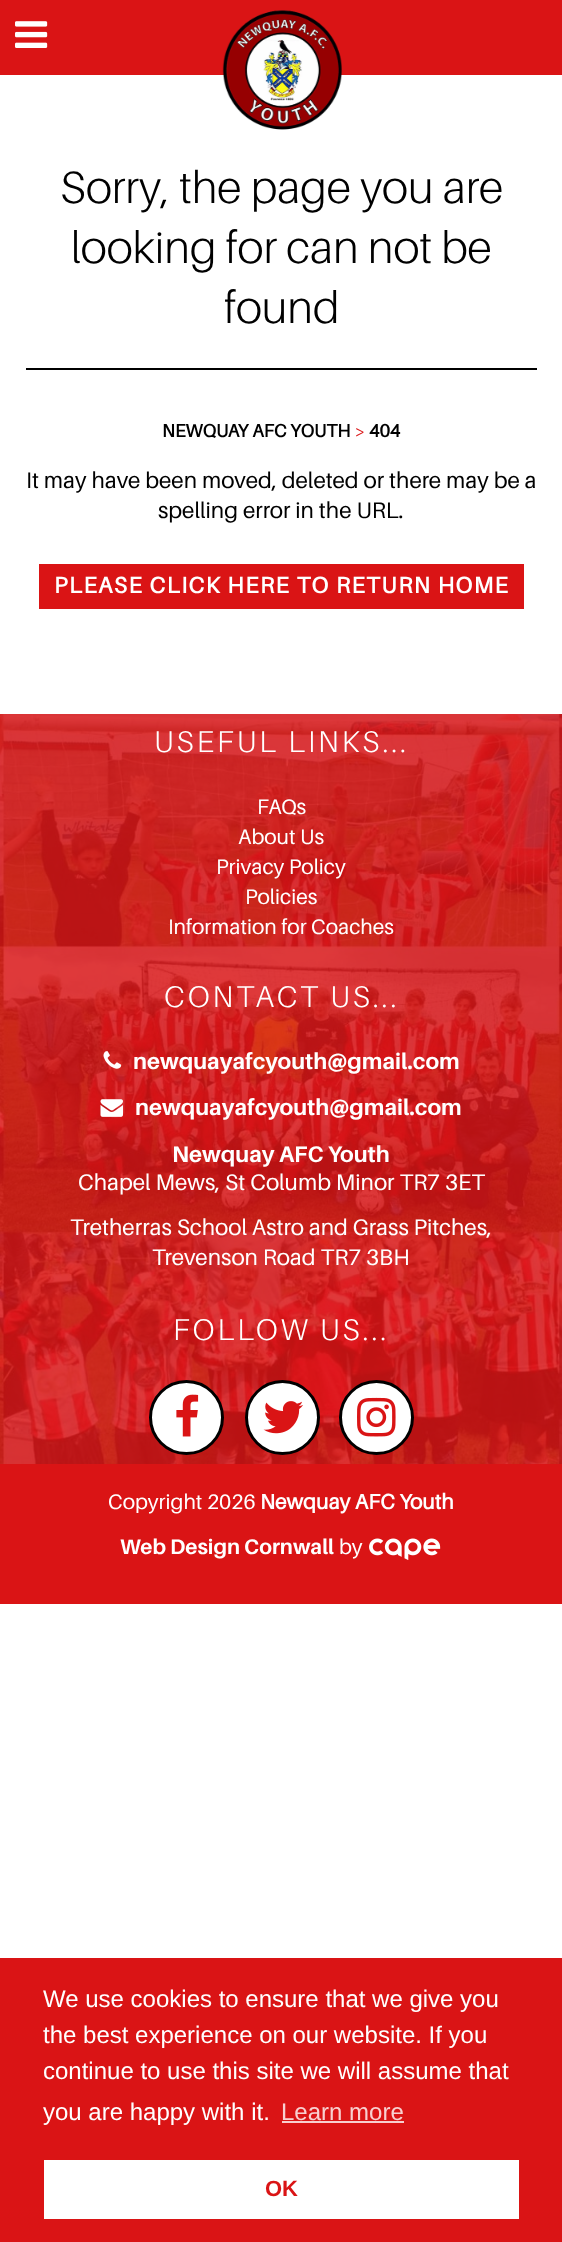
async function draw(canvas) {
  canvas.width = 562;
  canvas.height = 2242;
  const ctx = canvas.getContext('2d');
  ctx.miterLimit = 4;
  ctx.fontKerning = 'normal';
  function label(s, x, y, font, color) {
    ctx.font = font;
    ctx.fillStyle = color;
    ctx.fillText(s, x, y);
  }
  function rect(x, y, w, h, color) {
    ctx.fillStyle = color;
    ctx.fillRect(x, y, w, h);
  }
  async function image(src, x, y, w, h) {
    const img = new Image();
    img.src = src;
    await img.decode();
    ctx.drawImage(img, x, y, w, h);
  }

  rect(0, 0, 562, 2242, '#fff');
  rect(0, 0, 562, 75, '#da1415');
  await image('assets/img1.png', 222, 10, 120, 120);
  await image('assets/img2.png', 15, 21, 33, 27);
  label('Sorry, the page you are', 60, 203, '300 45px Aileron', '#000');
  label('looking for can not be', 71, 263, '300 45px Aileron', '#000');
  label('found', 224, 323, '300 45px Aileron', '#000');
  rect(26, 368, 511, 2, '#000');
  label('NEWQUAY AFC YOUTH', 162, 437, 'bold 18px Aileron', '#000');
  label('>', 355, 437, '18px Aileron', '#da1415');
  label('404', 369, 437, 'bold 18px Aileron', '#000');
  label('It may have been moved, deleted or there may be a', 26, 488, '22.5px Aileron', '#000');
  label('spelling error in the URL.', 158, 518, '22.5px Aileron', '#000');
  rect(39, 564, 485, 45, '#da1415');
  ctx.letterSpacing = '1.5px';
  label('PLEASE CLICK HERE TO RETURN HOME', 54, 593, 'bold 22.5px Aileron', '#fff');
  await image('assets/img3.png', 0, 714, 562, 750);
  ctx.letterSpacing = '3px';
  label('USEFUL LINKS...', 154, 752, '300 30px Aileron', '#fff');
  ctx.letterSpacing = '0px';
  label('FAQs', 257, 814, '21px Aileron', '#fff');
  label('About Us', 238, 844, '21px Aileron', '#fff');
  label('Privacy Policy', 216, 874, '21px Aileron', '#fff');
  label('Policies', 245, 904, '21px Aileron', '#fff');
  label('Information for Coaches', 168, 934, '21px Aileron', '#fff');
  ctx.letterSpacing = '3px';
  label('CONTACT US...', 164, 1007, '300 30px Aileron', '#fff');
  await image('assets/img4.png', 103, 1051, 19, 18);
  ctx.letterSpacing = '0px';
  label('newquayafcyouth@gmail.com', 133, 1069, 'bold 22.5px "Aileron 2"', '#fff');
  await image('assets/img5.png', 100, 1099, 23, 18);
  label('newquayafcyouth@gmail.com', 135, 1115, 'bold 22.5px "Aileron 2"', '#fff');
  label('Newquay AFC Youth', 172, 1162, 'bold 22.5px "Aileron 2"', '#fff');
  label('Chapel Mews, St Columb Minor TR7 3ET', 78, 1190, '22.5px Aileron', '#fff');
  label('Tretherras School Astro and Grass Pitches,', 70, 1235, '22.5px Aileron', '#fff');
  label('Trevenson Road TR7 3BH', 152, 1265, '22.5px Aileron', '#fff');
  ctx.letterSpacing = '3px';
  label('FOLLOW US...', 173, 1340, '300 30px Aileron', '#fff');
  ctx.beginPath();
  ctx.arc(186.5, 1417.5, 36, 0, 2 * Math.PI);
  ctx.fill();
  ctx.strokeStyle = '#000';
  ctx.lineWidth = 3;
  ctx.stroke();
  await image('assets/img6.png', 176, 1394, 23, 43);
  ctx.beginPath();
  ctx.arc(282.5, 1417.5, 36, 0, 2 * Math.PI);
  ctx.fill();
  ctx.stroke();
  await image('assets/img7.png', 263, 1401, 40, 33);
  ctx.beginPath();
  ctx.arc(376.5, 1417.5, 36, 0, 2 * Math.PI);
  ctx.fill();
  ctx.stroke();
  await image('assets/img8.png', 357, 1397, 39, 40);
  rect(0, 1464, 562, 140, '#da1415');
  ctx.letterSpacing = '0px';
  label('Copyright 2026', 108, 1509, '21px Aileron', '#fff');
  label('Newquay AFC Youth', 260, 1509, 'bold 21px Aileron', '#fff');
  label('Web Design Cornwall', 120, 1554, 'bold 21px "Aileron 2"', '#fff');
  await image('assets/img9.png', 369, 1538, 72, 22);
  label('by', 339, 1554, '21px Aileron', '#fff');
  rect(0, 1958, 562, 284, '#da1415');
  label('We use cookies to ensure that we give you', 43, 2007, '24px Liberation Sans', '#fff');
  label('the best experience on our website. If you', 43, 2043, '24px Liberation Sans', '#fff');
  label('continue to use this site we will assume that', 43, 2079, '24px Liberation Sans', '#fff');
  label('you are happy with it.', 43, 2120, '24px Liberation Sans', '#fff');
  label('Learn more', 281, 2120, '24px Liberation Sans', '#f8d0d0');
  rect(282, 2121, 122, 2, '#f8d0d0');
  rect(44, 2160, 475, 59, '#fff');
  label('OK', 265, 2196, 'bold 22px Liberation Sans', '#da1415');
}

draw(document.querySelector('canvas'));
